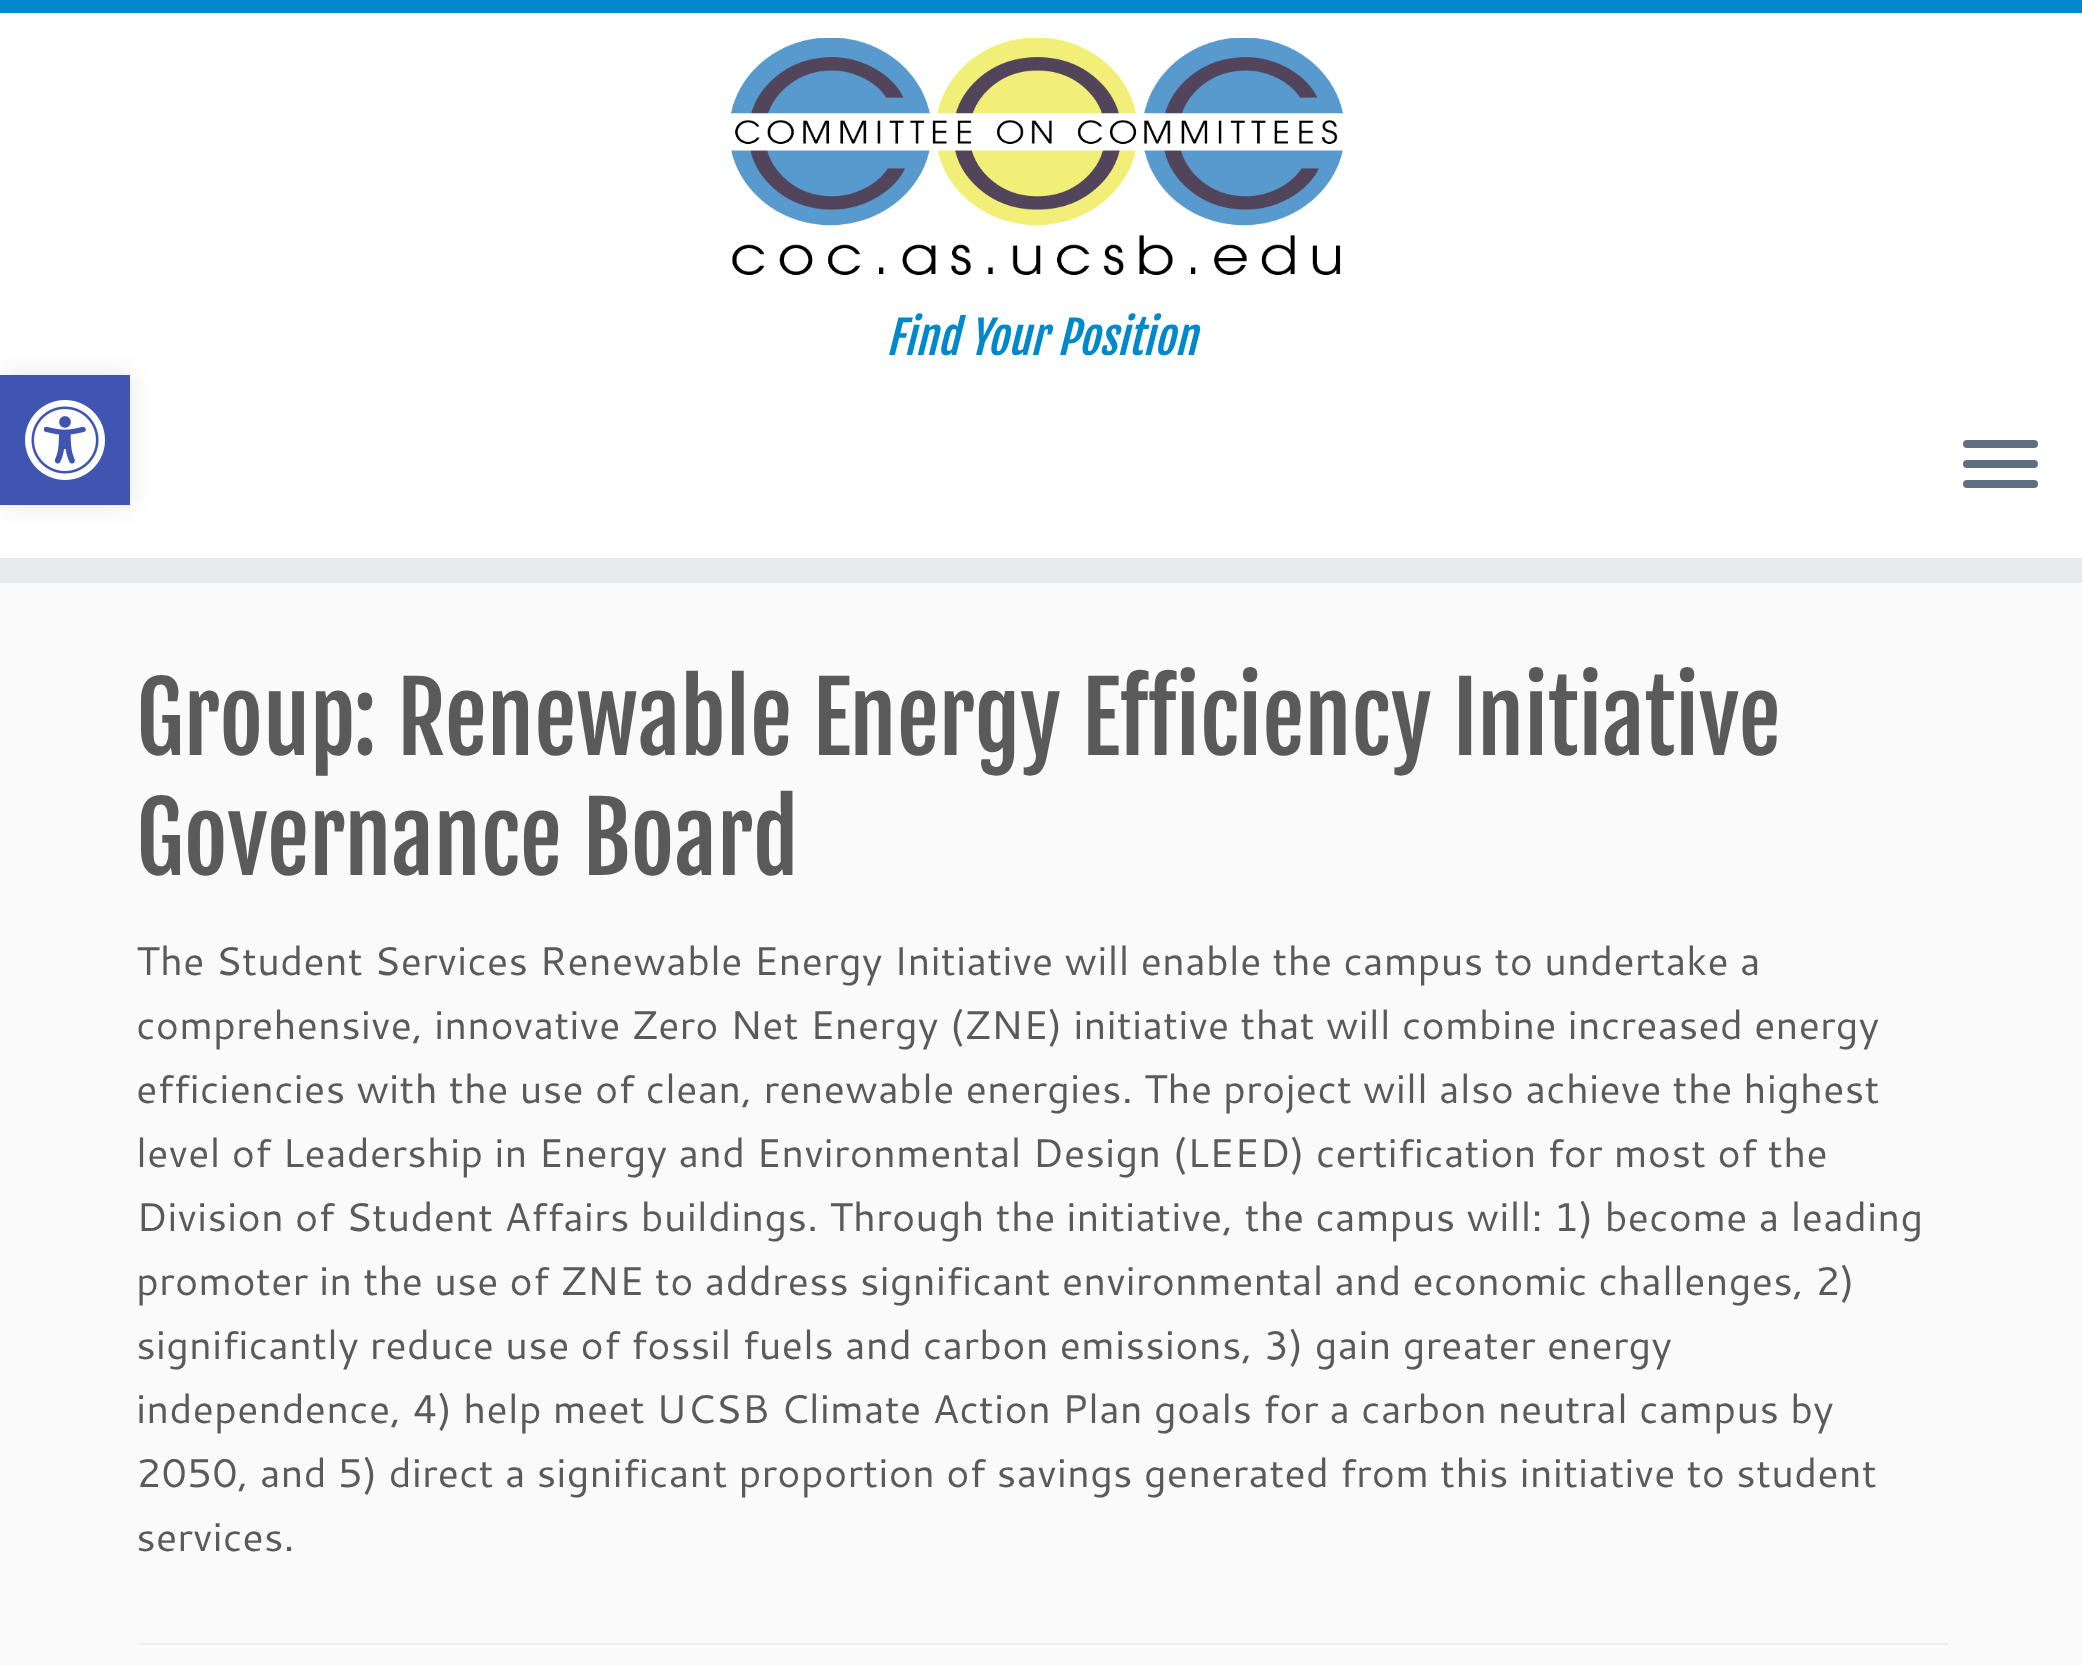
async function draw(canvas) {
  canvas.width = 2082;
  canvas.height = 1665;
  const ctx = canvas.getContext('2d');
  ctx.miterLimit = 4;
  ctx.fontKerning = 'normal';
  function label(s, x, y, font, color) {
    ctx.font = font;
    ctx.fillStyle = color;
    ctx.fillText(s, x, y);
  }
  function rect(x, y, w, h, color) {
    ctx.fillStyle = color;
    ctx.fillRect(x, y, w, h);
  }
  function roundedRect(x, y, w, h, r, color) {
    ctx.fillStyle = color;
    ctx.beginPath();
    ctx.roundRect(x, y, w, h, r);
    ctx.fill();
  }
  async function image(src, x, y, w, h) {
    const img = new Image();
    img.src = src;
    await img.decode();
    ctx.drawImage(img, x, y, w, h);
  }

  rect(0, 0, 2082, 1665, '#fafafa');
  rect(0, 13, 2082, 545, '#fff');
  ctx.fillStyle = '#0000001a';
  ctx.filter = 'blur(12.5px)';
  ctx.beginPath();
  ctx.rect(0, 375, 130, 130);
  ctx.fill();
  ctx.filter = 'none';
  rect(0, 375, 130, 130, '#4054b2');
  await image('assets/img1.png', 25, 400, 80, 80);
  rect(0, 0, 2082, 13, '#08c');
  rect(0, 558, 2082, 25, '#e9eaee');
  await image('assets/img2.png', 731, 38, 612, 237);
  label('Find Your Position', 886, 355, 'italic 45px Fjalla One', '#08c');
  roundedRect(1963, 440, 75, 8, 4, '#5f6f81');
  roundedRect(1963, 460, 75, 8, 4, '#5f6f81');
  roundedRect(1963, 480, 75, 8, 4, '#5f6f81');
  label('Group: Renewable Energy Efficiency Initiative', 136, 755, '95px Fjalla One', '#5a5a5a');
  label('Governance Board', 136, 875, '95px Fjalla One', '#5a5a5a');
  label('The Student Services Renewable Energy Initiative will enable the campus to undertake a', 136, 975, '40px Cantarell', '#5a5a5a');
  label('comprehensive, innovative Zero Net Energy (ZNE) initiative that will combine increased energy', 136, 1039, '40px Cantarell', '#5a5a5a');
  label('efficiencies with the use of clean, renewable energies. The project will also achieve the highest', 136, 1103, '40px Cantarell', '#5a5a5a');
  label('level of Leadership in Energy and Environmental Design (LEED) certification for most of the', 136, 1167, '40px Cantarell', '#5a5a5a');
  label('Division of Student Affairs buildings. Through the initiative, the campus will: 1) become a leading', 136, 1231, '40px Cantarell', '#5a5a5a');
  label('promoter in the use of ZNE to address significant environmental and economic challenges, 2)', 136, 1295, '40px Cantarell', '#5a5a5a');
  label('significantly reduce use of fossil fuels and carbon emissions, 3) gain greater energy', 136, 1359, '40px Cantarell', '#5a5a5a');
  label('independence, 4) help meet UCSB Climate Action Plan goals for a carbon neutral campus by', 136, 1423, '40px Cantarell', '#5a5a5a');
  label('2050, and 5) direct a significant proportion of savings generated from this initiative to student', 136, 1487, '40px Cantarell', '#5a5a5a');
  label('services.', 136, 1551, '40px Cantarell', '#5a5a5a');
  rect(138, 1643, 1810, 2, '#eee');
  rect(138, 1645, 1810, 3, '#fff');
}

draw(document.querySelector('canvas'));
